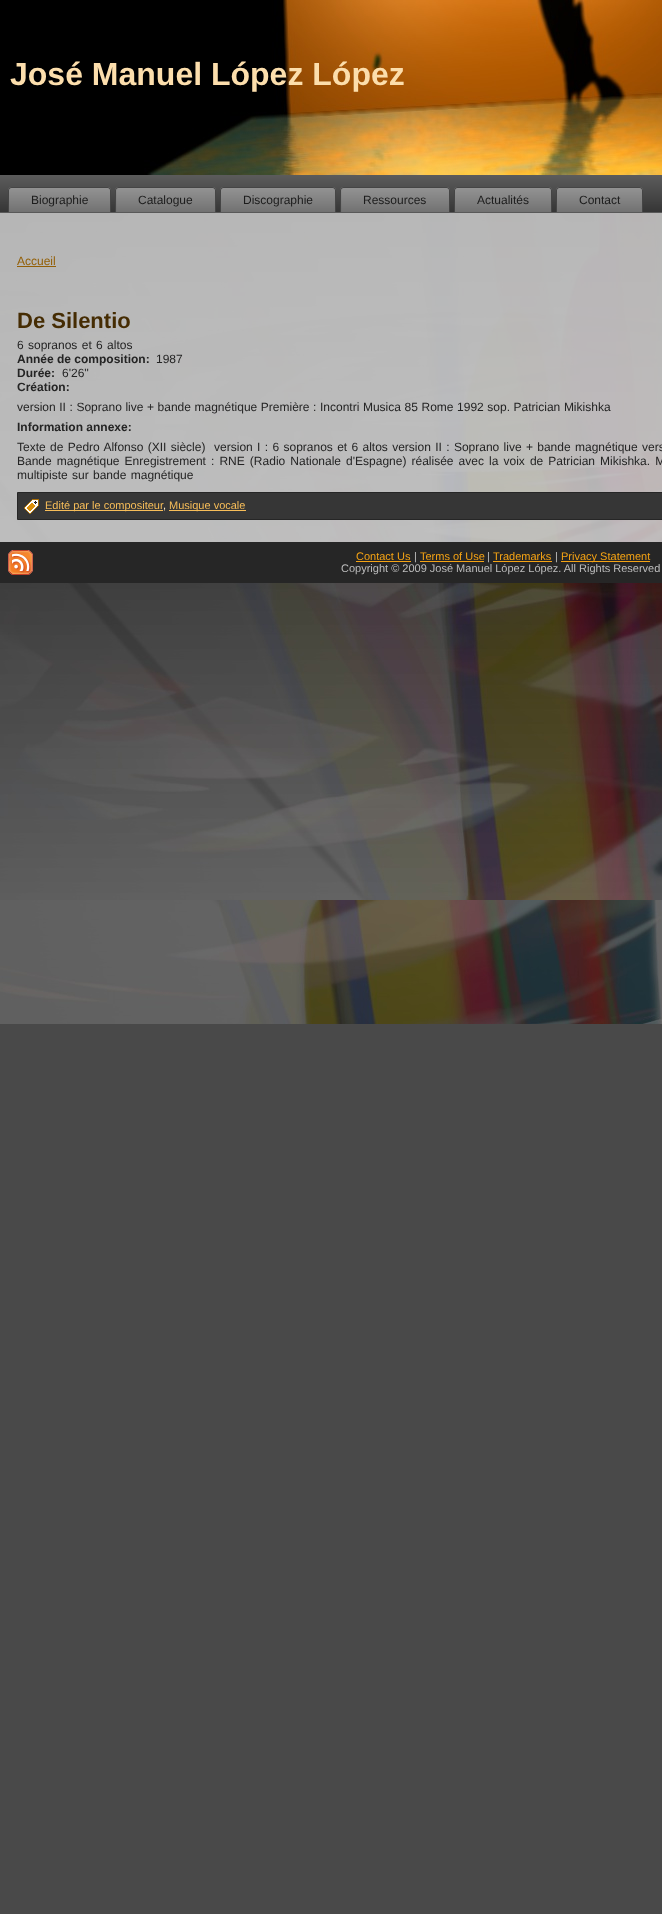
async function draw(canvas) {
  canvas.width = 662;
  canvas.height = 1914;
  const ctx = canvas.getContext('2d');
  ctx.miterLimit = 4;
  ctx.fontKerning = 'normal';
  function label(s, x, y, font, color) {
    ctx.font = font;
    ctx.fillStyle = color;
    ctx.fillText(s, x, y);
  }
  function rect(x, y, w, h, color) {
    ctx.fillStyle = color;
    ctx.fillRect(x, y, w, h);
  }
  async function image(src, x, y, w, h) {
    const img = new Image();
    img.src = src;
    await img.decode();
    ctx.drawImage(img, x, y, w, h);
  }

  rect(0, 0, 662, 1914, '#494949');
  await image('assets/img1.png', 0, 900, 662, 124);
  await image('assets/img2.png', 0, 0, 662, 175);
  label('José Manuel López López', 10, 85, 'bold 32px Liberation Sans', '#fcdeac');
  await image('assets/img3.png', 0, 175, 662, 38);
  await image('assets/img4.png', 8, 187, 99, 25);
  await image('assets/img5.png', 107, 187, 4, 25);
  label('Biographie', 31, 204, '12px Liberation Sans', '#1c1c1c');
  await image('assets/img6.png', 115, 187, 97, 25);
  await image('assets/img5.png', 212, 187, 4, 25);
  label('Catalogue', 138, 204, '12px Liberation Sans', '#1c1c1c');
  await image('assets/img7.png', 220, 187, 112, 25);
  await image('assets/img5.png', 332, 187, 4, 25);
  label('Discographie', 243, 204, '12px Liberation Sans', '#1c1c1c');
  await image('assets/img8.png', 340, 187, 106, 25);
  await image('assets/img5.png', 446, 187, 4, 25);
  label('Ressources', 363, 204, '12px Liberation Sans', '#1c1c1c');
  await image('assets/img9.png', 454, 187, 94, 25);
  await image('assets/img5.png', 548, 187, 4, 25);
  label('Actualités', 477, 204, '12px Liberation Sans', '#1c1c1c');
  await image('assets/img10.png', 556, 187, 83, 25);
  await image('assets/img5.png', 639, 187, 4, 25);
  label('Contact', 579, 204, '12px Liberation Sans', '#1c1c1c');
  await image('assets/img13.png', 0, 213, 662, 687);
  rect(0, 213, 662, 329, '#dededecc');
  label('Accueil', 17, 265, '12px Liberation Sans', '#935f06');
  rect(17, 266, 39, 1, '#935f06');
  label('De Silentio', 17, 328, 'bold 22px Liberation Sans', '#452c03');
  ctx.wordSpacing = '1px';
  label('6 sopranos et 6 altos', 17, 349, '12px Liberation Sans', '#242424');
  ctx.wordSpacing = '0px';
  label('Année de composition:', 17, 363, 'bold 12px Liberation Sans', '#242424');
  label('1987', 156, 363, '12px Liberation Sans', '#242424');
  label('Durée:', 17, 377, 'bold 12px Liberation Sans', '#242424');
  label('6\'26\'\'', 62, 377, '12px Liberation Sans', '#242424');
  label('Création:', 17, 391, 'bold 12px Liberation Sans', '#242424');
  ctx.wordSpacing = '0.25px';
  label('version II : Soprano live + bande magnétique Première : Incontri Musica 85 Rome 1992 sop. Patrician Mikishka', 17, 411, '12px Liberation Sans', '#242424');
  ctx.wordSpacing = '0px';
  label('Information annexe:', 17, 431, 'bold 12px Liberation Sans', '#242424');
  ctx.wordSpacing = '1px';
  label('Texte de Pedro Alfonso (XII siècle)  version I : 6 sopranos et 6 altos version II : Soprano live + bande magnétique vers', 17, 451, '12px Liberation Sans', '#242424');
  ctx.wordSpacing = '1.75px';
  label('Bande magnétique Enregistrement : RNE (Radio Nationale d\'Espagne) réalisée avec la voix de Patrician Mikishka. M', 17, 465, '12px Liberation Sans', '#242424');
  ctx.wordSpacing = '1px';
  label('multipiste sur bande magnétique', 17, 479, '12px Liberation Sans', '#242424');
  ctx.fillStyle = '#363636';
  ctx.beginPath();
  ctx.rect(17.5, 492.5, 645, 27);
  ctx.fill();
  ctx.strokeStyle = '#262626';
  ctx.stroke();
  await image('assets/img11.png', 24, 499, 15, 15);
  rect(45, 510, 118, 1, '#f8be59');
  ctx.wordSpacing = '0px';
  label('Edité par le compositeur', 45, 509, '11px Liberation Sans', '#f8be59');
  label(',', 163, 509, '11px Liberation Sans', '#fde8c4');
  rect(169, 510, 77, 1, '#f8be59');
  label('Musique vocale', 169, 509, '11px Liberation Sans', '#f8be59');
  rect(0, 542, 662, 41, '#262626');
  await image('assets/img12.png', 8, 550, 25, 25);
  label('Contact Us', 356, 560, '11px Liberation Sans', '#f5a314');
  rect(356, 561, 55, 1, '#f5a314');
  label('|', 414, 560, '11px Liberation Sans', '#bdbdbd');
  label('Terms of Use', 420, 560, '11px Liberation Sans', '#f5a314');
  rect(420, 561, 64, 1, '#f5a314');
  label('|', 487, 560, '11px Liberation Sans', '#bdbdbd');
  label('Trademarks', 493, 560, '11px Liberation Sans', '#f5a314');
  rect(493, 561, 59, 1, '#f5a314');
  label('|', 555, 560, '11px Liberation Sans', '#bdbdbd');
  rect(561, 561, 89, 1, '#f5a314');
  label('Privacy Statement', 561, 560, '11px Liberation Sans', '#f5a314');
  label('Copyright © 2009 José Manuel López López. All Rights Reserved', 341, 572, '11px Liberation Sans', '#bdbdbd');
}

draw(document.querySelector('canvas'));
